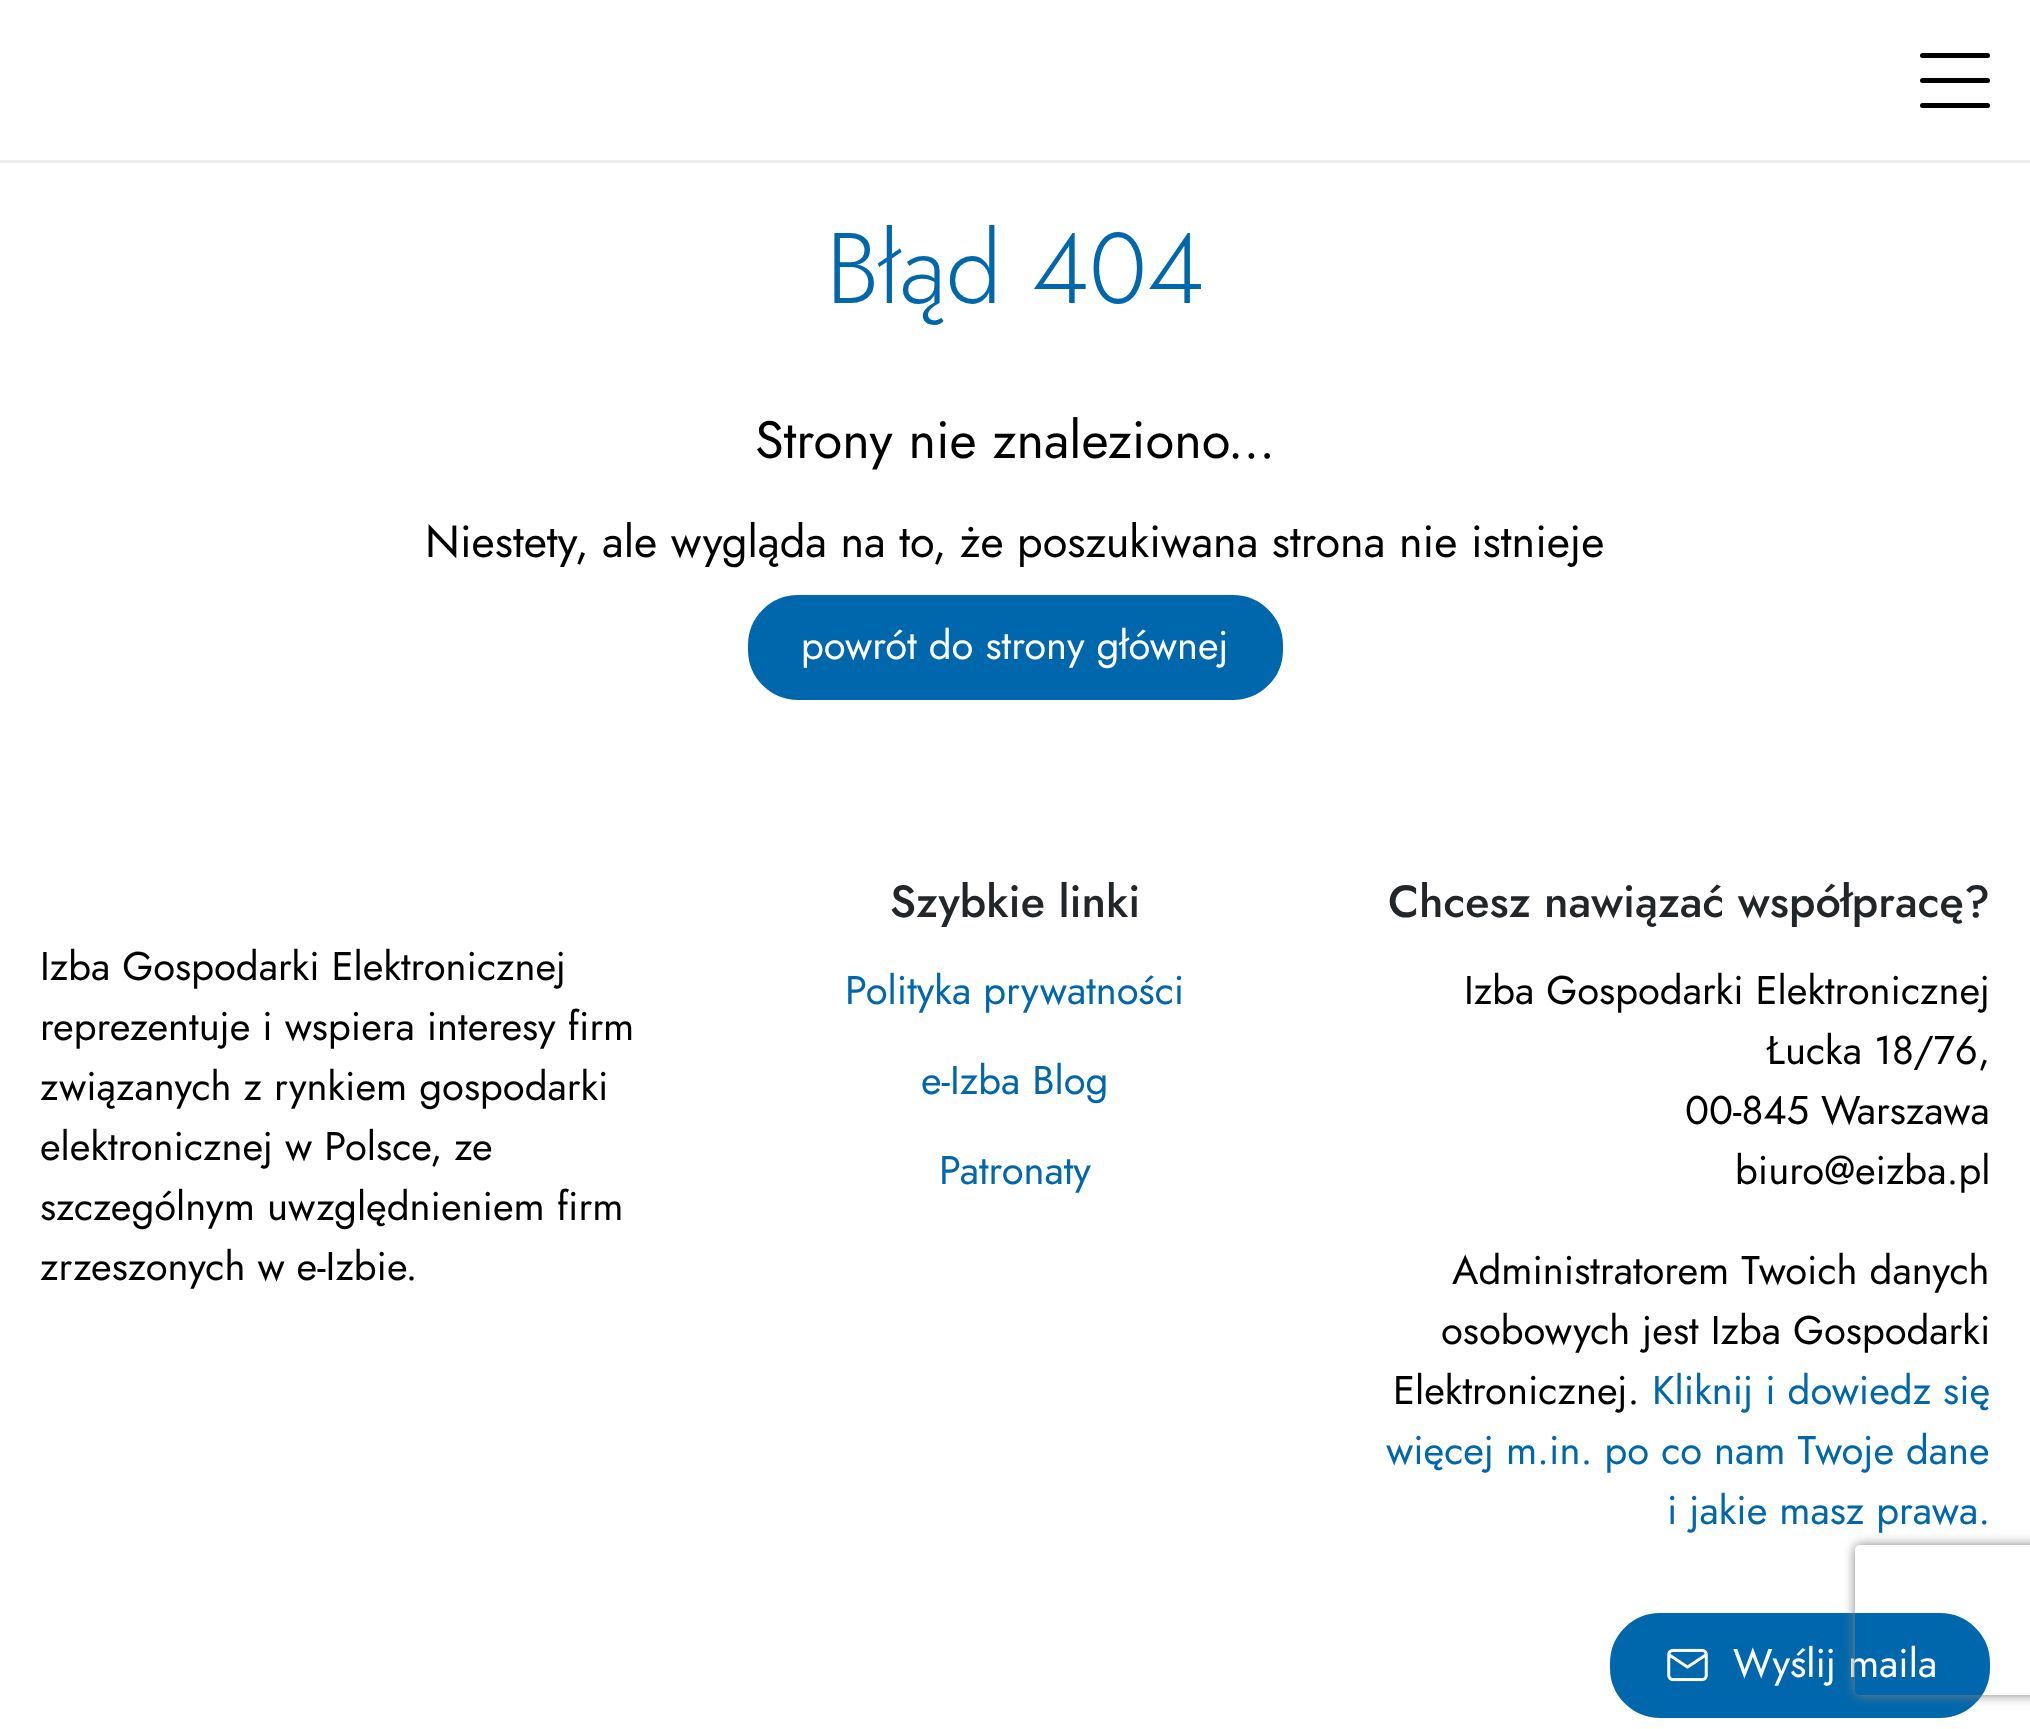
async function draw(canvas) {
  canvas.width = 2030;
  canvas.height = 1729;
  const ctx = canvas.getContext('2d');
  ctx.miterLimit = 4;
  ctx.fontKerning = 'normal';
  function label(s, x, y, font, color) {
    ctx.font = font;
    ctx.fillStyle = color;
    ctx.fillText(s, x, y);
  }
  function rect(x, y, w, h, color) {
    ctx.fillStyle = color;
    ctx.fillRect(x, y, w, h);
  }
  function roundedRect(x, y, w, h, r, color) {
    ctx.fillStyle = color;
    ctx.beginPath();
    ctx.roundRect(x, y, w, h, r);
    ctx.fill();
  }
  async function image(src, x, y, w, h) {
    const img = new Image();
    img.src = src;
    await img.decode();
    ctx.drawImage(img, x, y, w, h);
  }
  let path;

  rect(0, 0, 2030, 1729, '#fff');
  rect(0, 160, 2030, 3, '#ecedef');
  roundedRect(1920, 78, 70, 5, 2.5, '#000');
  roundedRect(1920, 53, 70, 5, 2.5, '#000');
  roundedRect(1920, 103, 70, 5, 2.5, '#000');
  label('Błąd 404', 826, 303, '300 100px Jost', '#0067ac');
  label('Strony nie znaleziono...', 755, 458, '52.5px Jost', '#000');
  label('Niestety, ale wygląda na to, że poszukiwana strona nie istnieje', 425, 557, '45px Jost', '#000');
  ctx.fillStyle = '#0067ac';
  ctx.beginPath();
  ctx.roundRect(749.5, 596.5, 532, 102, 48.5);
  ctx.fill();
  ctx.strokeStyle = '#0067ac';
  ctx.lineWidth = 3;
  ctx.stroke();
  label('powrót do strony głównej', 801, 659, '40px Jost', '#fff');
  label('Izba Gospodarki Elektronicznej', 40, 980, '40px Jost', '#000');
  label('reprezentuje i wspiera interesy firm', 40, 1040, '40px Jost', '#000');
  label('związanych z rynkiem gospodarki', 40, 1100, '40px Jost', '#000');
  label('elektronicznej w Polsce, ze', 40, 1160, '40px Jost', '#000');
  label('szczególnym uwzględnieniem firm', 40, 1220, '40px Jost', '#000');
  label('zrzeszonych w e-Izbie.', 40, 1280, '40px Jost', '#000');
  label('Szybkie linki', 890, 917, '500 45px Jost', '#232629');
  label('Polityka prywatności', 845, 1004, '40px Jost', '#0067ac');
  label('e-Izba Blog', 921, 1094, '40px Jost', '#0067ac');
  label('Patronaty', 939, 1184, '40px Jost', '#0067ac');
  label('Chcesz nawiązać współpracę?', 1388, 917, '500 45px Jost', '#232629');
  label('Izba Gospodarki Elektronicznej', 1464, 1004, '40px Jost', '#000');
  label('Łucka 18/76,', 1767, 1064, '40px Jost', '#000');
  label('00-845 Warszawa', 1685, 1124, '40px Jost', '#000');
  label('biuro@eizba.pl', 1735, 1184, '40px Jost', '#000');
  label('Administratorem Twoich danych', 1452, 1284, '40px Jost', '#000');
  label('osobowych jest Izba Gospodarki', 1441, 1344, '40px Jost', '#000');
  label('Elektronicznej.', 1393, 1404, '40px Jost', '#000');
  label('Kliknij i dowiedz się', 1652, 1404, '40px Jost', '#0067ac');
  label('więcej m.in. po co nam Twoje dane', 1386, 1464, '40px Jost', '#0067ac');
  label('i jakie masz prawa.', 1667, 1524, '40px Jost', '#0067ac');
  ctx.beginPath();
  ctx.roundRect(1611.5, 1614.5, 377, 102, 48.5);
  ctx.fill();
  ctx.stroke();
  await image('assets/img1.png', 1667, 1648, 41, 34);
  label('Wyślij maila', 1733, 1677, '40px Jost', '#fff');
  ctx.save();
  path = new Path2D('M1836 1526H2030V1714H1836ZM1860 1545H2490C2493 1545 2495 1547 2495 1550V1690C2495 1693 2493 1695 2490 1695H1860C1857 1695 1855 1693 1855 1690V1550C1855 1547 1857 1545 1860 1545Z');
  ctx.clip(path, 'evenodd');
  ctx.fillStyle = '#808080';
  ctx.filter = 'blur(6px)';
  ctx.beginPath();
  ctx.roundRect(1855, 1545, 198, 150, 5);
  ctx.fill();
  ctx.filter = 'none';
  ctx.restore();
}

draw(document.querySelector('canvas'));
